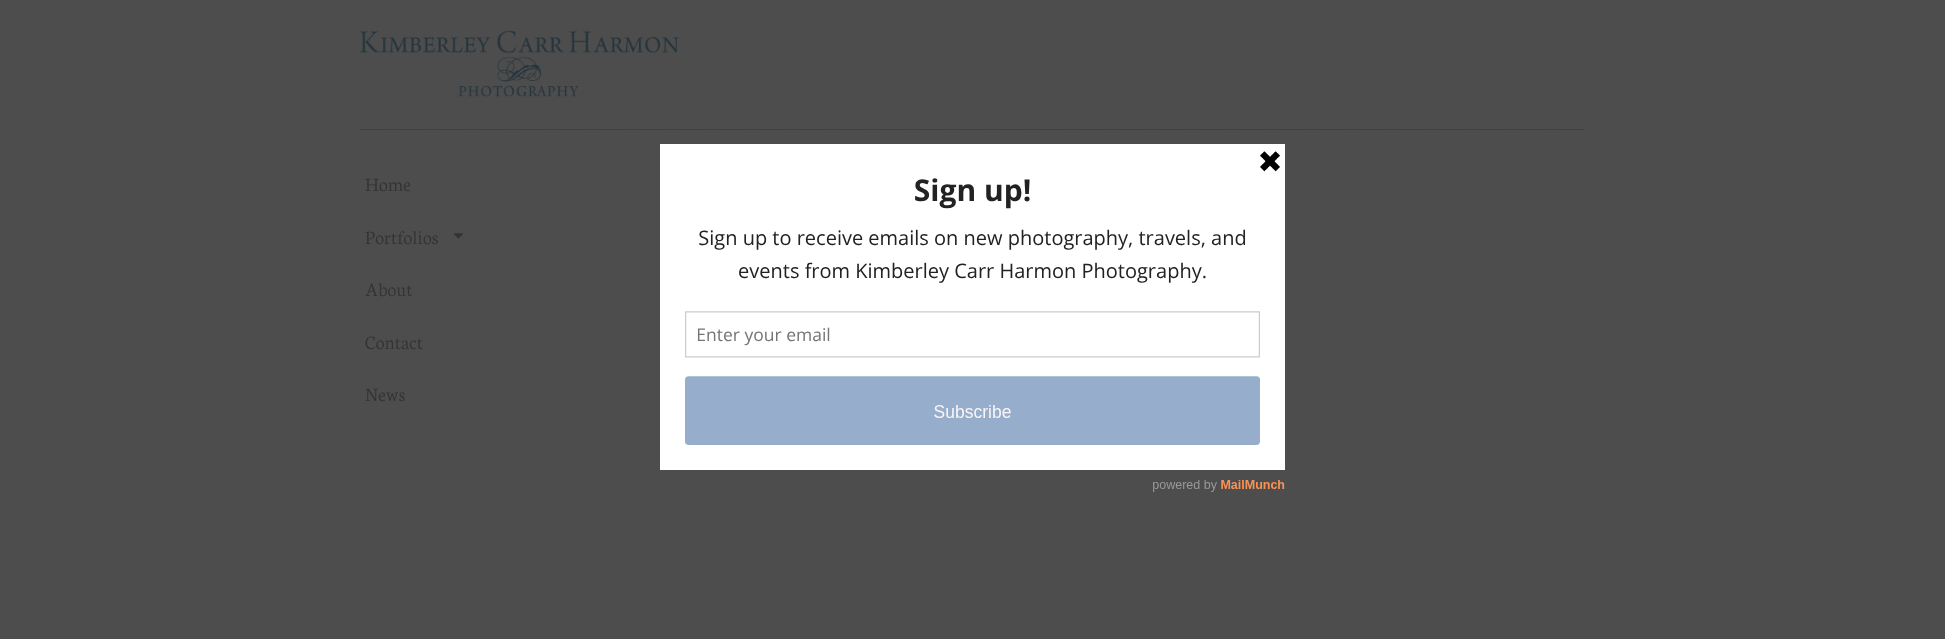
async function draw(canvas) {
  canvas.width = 1945;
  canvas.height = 639;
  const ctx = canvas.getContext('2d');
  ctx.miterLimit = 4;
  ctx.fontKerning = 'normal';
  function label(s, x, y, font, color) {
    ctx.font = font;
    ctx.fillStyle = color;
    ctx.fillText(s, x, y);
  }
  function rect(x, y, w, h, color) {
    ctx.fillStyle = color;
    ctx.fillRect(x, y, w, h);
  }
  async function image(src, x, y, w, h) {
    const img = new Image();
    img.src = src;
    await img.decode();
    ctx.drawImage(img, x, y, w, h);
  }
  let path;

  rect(0, 0, 1945, 639, '#4d4d4d');
  path = new Path2D('M360 129.5H1585');
  ctx.strokeStyle = '#353637';
  ctx.lineWidth = 1.2;
  ctx.setLineDash([1.25, 1.25]);
  ctx.stroke(path);
  await image('assets/img1.png', 360, 31, 319, 66);
  label('Home', 365, 191, '300 20px Neuton', '#333');
  label('Portfolios', 365, 244, '300 20px Neuton', '#333');
  await image('assets/img2.png', 453, 233, 10, 6);
  label('About', 365, 296, '300 20px Neuton', '#333');
  label('Contact', 365, 349, '300 20px Neuton', '#333');
  label('News', 365, 401, '300 20px Neuton', '#333');
  await image('assets/img3.png', 660, 144, 625, 348);
}

draw(document.querySelector('canvas'));
